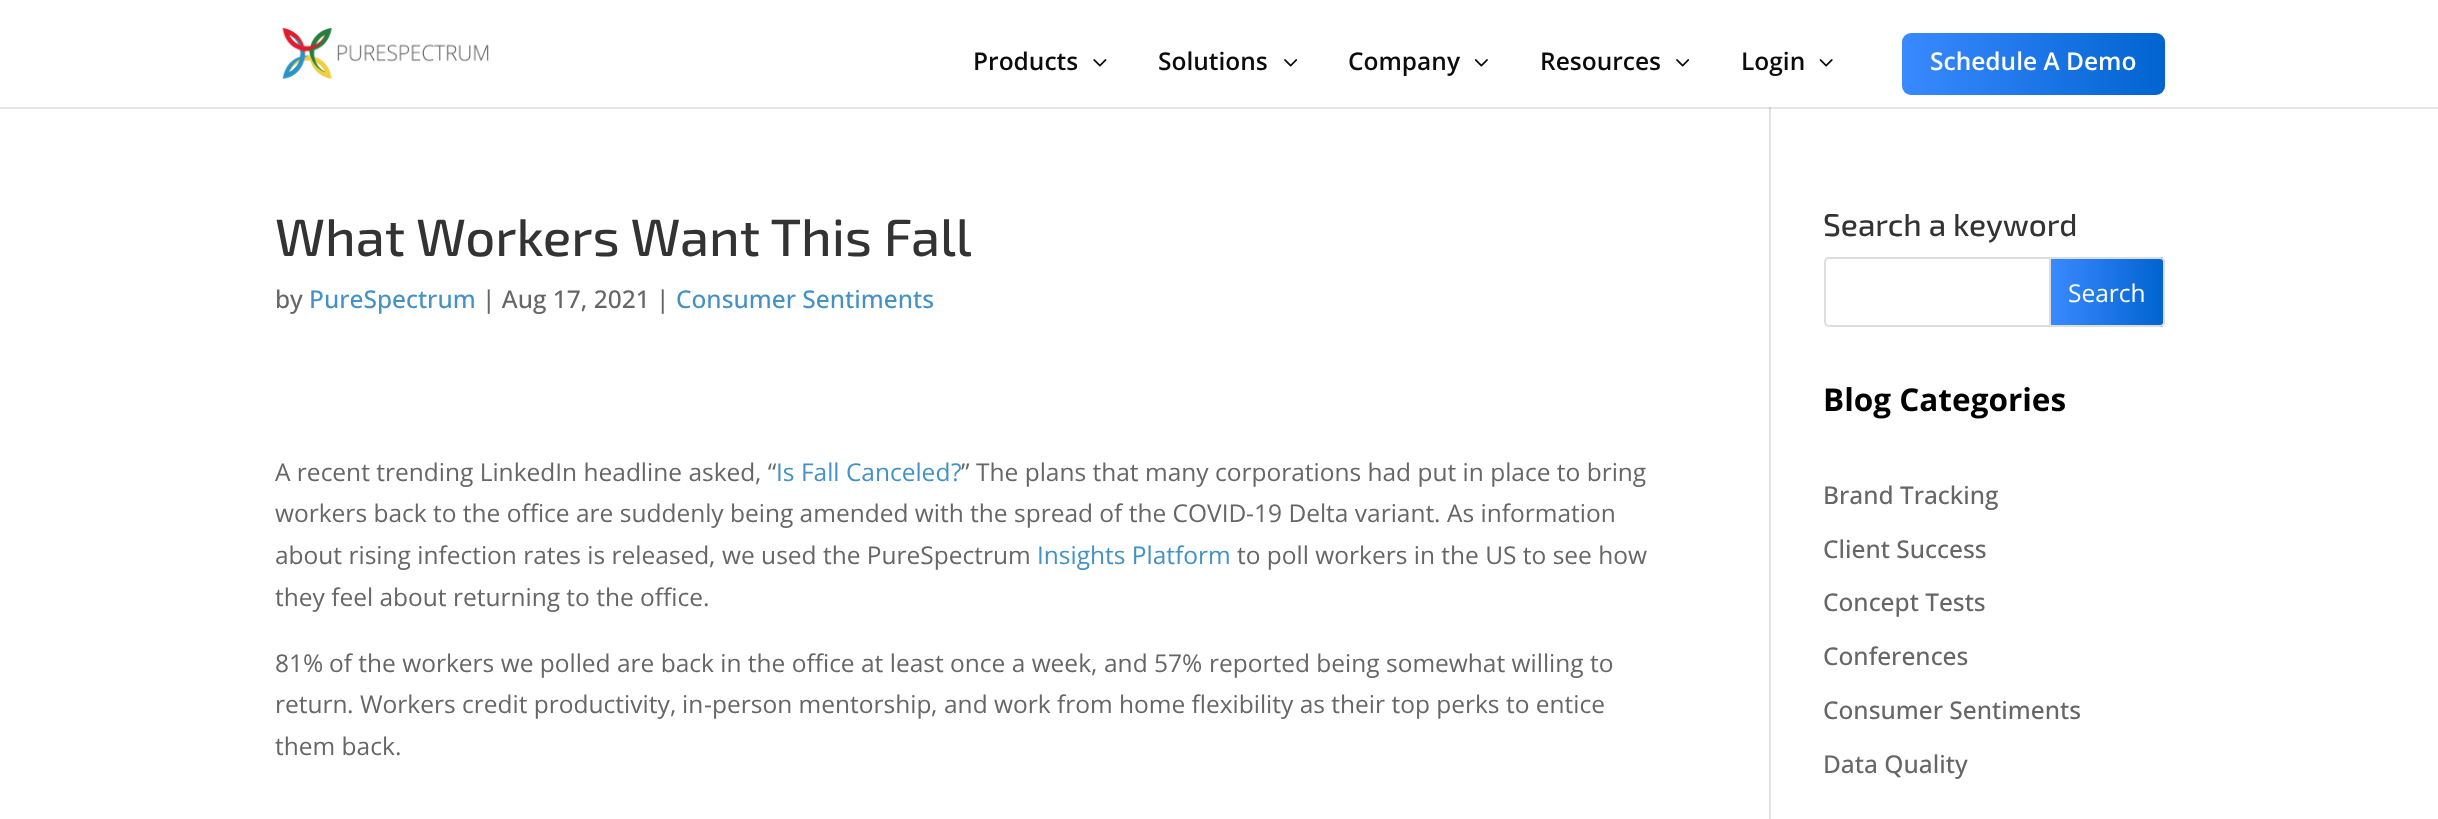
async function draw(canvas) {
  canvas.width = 2438;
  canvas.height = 819;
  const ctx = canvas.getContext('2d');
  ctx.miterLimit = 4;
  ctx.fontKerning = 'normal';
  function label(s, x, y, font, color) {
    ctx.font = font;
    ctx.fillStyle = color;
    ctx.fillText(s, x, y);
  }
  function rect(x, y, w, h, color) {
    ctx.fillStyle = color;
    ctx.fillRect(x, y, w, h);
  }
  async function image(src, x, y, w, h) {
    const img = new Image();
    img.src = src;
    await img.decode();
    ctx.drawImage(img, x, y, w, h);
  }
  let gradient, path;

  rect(0, 0, 2438, 819, '#fff');
  rect(1769, 107, 2, 712, '#e2e2e2');
  ctx.fillStyle = '#0000001a';
  path = new Path2D('M0 107V109H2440V2V107Z');
  ctx.fill(path);
  await image('assets/img1.png', 282, 28, 207, 51);
  label('Products', 973, 70, '600 24.5px Open Sans', '#0c0c0c');
  await image('assets/img2.png', 1093, 59, 14, 8);
  label('Solutions', 1158, 70, '600 24.5px Open Sans', '#0c0c0c');
  await image('assets/img3.png', 1284, 59, 14, 8);
  label('Company', 1348, 70, '600 24.5px Open Sans', '#0c0c0c');
  await image('assets/img4.png', 1474, 59, 14, 8);
  label('Resources', 1540, 70, '600 24.5px Open Sans', '#0c0c0c');
  await image('assets/img3.png', 1676, 59, 14, 8);
  label('Login', 1741, 70, '600 24.5px Open Sans', '#0c0c0c');
  await image('assets/img5.png', 1819, 59, 14, 8);
  gradient = ctx.createLinearGradient(1902, 64, 2165, 64);
  gradient.addColorStop(0, '#3a89ff');
  gradient.addColorStop(1, '#0064d0');
  ctx.fillStyle = gradient;
  ctx.beginPath();
  ctx.roundRect(1902, 33, 263, 62, 9);
  ctx.fill();
  label('Schedule A Demo', 1930, 70, '600 24.5px Open Sans', '#fff');
  label('What Workers Want This Fall', 275, 256, '500 52.5px "Exo 2"', '#333');
  label('by', 275, 308, '500 24.5px Open Sans', '#666');
  label('PureSpectrum', 309, 308, '500 24.5px Open Sans', '#4391c6');
  label('| Aug 17, 2021 |', 482, 308, '500 24.5px Open Sans', '#666');
  label('Consumer Sentiments', 676, 308, '500 24.5px Open Sans', '#4391c6');
  label('A recent trending LinkedIn headline asked', 275, 481, '24.5px Open Sans', '#666');
  label(', “', 755, 481, '24.5px "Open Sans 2"', '#666');
  label('Is Fall Canceled', 776, 481, '24.5px Open Sans', '#4391c6');
  label('?', 951, 481, '24.5px "Open Sans 2"', '#4391c6');
  label('”', 961, 481, '24.5px "Open Sans 2"', '#666');
  label('The plans that many corporations had put in place to bring', 976, 481, '24.5px Open Sans', '#666');
  label('workers back to the office are suddenly being amended with the spread of the COVID', 275, 522, '24.5px Open Sans', '#666');
  label('-', 1246, 522, '24.5px "Open Sans 2"', '#666');
  label('19 Delta variant', 1254, 522, '24.5px Open Sans', '#666');
  label('As information', 1447, 522, '24.5px Open Sans', '#666');
  label('.', 1434, 522, '24.5px "Open Sans 2"', '#666');
  label('about rising infection rates is released', 275, 564, '24.5px Open Sans', '#666');
  label(',', 709, 564, '24.5px "Open Sans 2"', '#666');
  label('we used the PureSpectrum', 722, 564, '24.5px Open Sans', '#666');
  label('Insights Platform', 1037, 564, '24.5px Open Sans', '#4391c6');
  label('to poll workers in the US to see how', 1237, 564, '24.5px Open Sans', '#666');
  label('they feel about returning to the office', 275, 606, '24.5px Open Sans', '#666');
  label('.', 703, 606, '24.5px "Open Sans 2"', '#666');
  label('81', 275, 672, '24.5px Open Sans', '#666');
  label('%', 303, 672, '24.5px "Open Sans 2"', '#666');
  label('of the workers we polled are back in the office at least once a week', 329, 672, '24.5px Open Sans', '#666');
  label(',', 1091, 672, '24.5px "Open Sans 2"', '#666');
  label('and 57', 1104, 672, '24.5px Open Sans', '#666');
  label('%', 1182, 672, '24.5px "Open Sans 2"', '#666');
  label('reported being somewhat willing to', 1209, 672, '24.5px Open Sans', '#666');
  label('return', 275, 713, '24.5px Open Sans', '#666');
  label('Workers credit productivity', 360, 713, '24.5px Open Sans', '#666');
  label('in', 682, 713, '24.5px Open Sans', '#666');
  label('-', 704, 713, '24.5px "Open Sans 2"', '#666');
  label('person mentorship', 712, 713, '24.5px Open Sans', '#666');
  label('and work from home flexibility as their top perks to entice', 944, 713, '24.5px Open Sans', '#666');
  label('.', 347, 713, '24.5px "Open Sans 2"', '#666');
  label(',', 670, 713, '24.5px "Open Sans 2"', '#666');
  label(',', 931, 713, '24.5px "Open Sans 2"', '#666');
  label('them back', 275, 755, '24.5px Open Sans', '#666');
  label('.', 395, 755, '24.5px "Open Sans 2"', '#666');
  label('Search a keyword', 1823, 236, '500 31.5px "Exo 2"', '#333');
  ctx.beginPath();
  ctx.roundRect(1825, 258, 339, 68, 4);
  ctx.strokeStyle = '#ddd';
  ctx.lineWidth = 2;
  ctx.stroke();
  ctx.save();
  ctx.beginPath();
  ctx.roundRect(2049, 257, 116, 70, [0, 5, 5, 0]);
  ctx.clip();
  gradient = ctx.createLinearGradient(2051, 292, 2163, 292);
  gradient.addColorStop(0, '#3a89ff');
  gradient.addColorStop(1, '#0064d0');
  ctx.fillStyle = gradient;
  ctx.fillRect(2051, 257, 112, 70);
  ctx.restore();
  ctx.beginPath();
  ctx.roundRect(2050, 258, 114, 68, [0, 4, 4, 0]);
  ctx.stroke();
  label('Search', 2068, 302, '24.5px Open Sans', '#fff');
  label('Blog Categories', 1823, 411, 'bold 31.5px Open Sans', '#000');
  label('Brand Tracking', 1823, 504, '500 24.5px Open Sans', '#666');
  label('Client Success', 1823, 558, '500 24.5px Open Sans', '#666');
  label('Concept Tests', 1823, 611, '500 24.5px Open Sans', '#666');
  label('Conferences', 1823, 665, '500 24.5px Open Sans', '#666');
  label('Consumer Sentiments', 1823, 719, '500 24.5px Open Sans', '#666');
  label('Data Quality', 1823, 773, '500 24.5px Open Sans', '#666');
}

draw(document.querySelector('canvas'));
